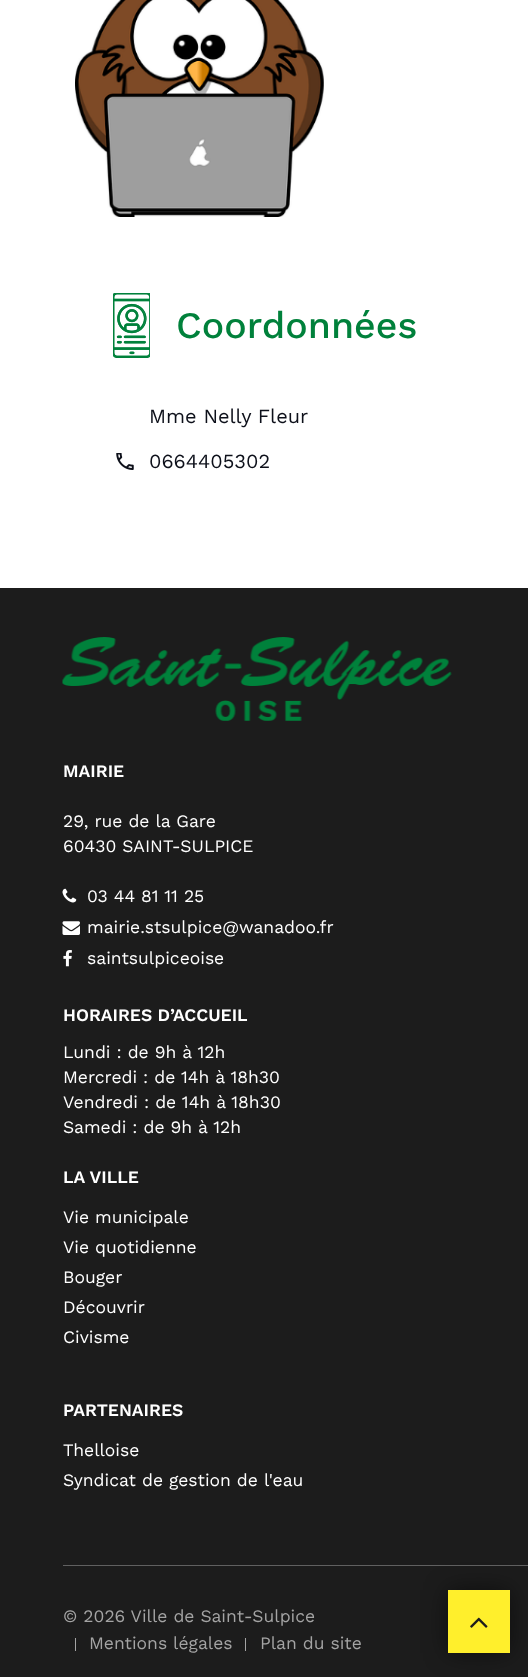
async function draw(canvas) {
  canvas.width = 528;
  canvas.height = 1677;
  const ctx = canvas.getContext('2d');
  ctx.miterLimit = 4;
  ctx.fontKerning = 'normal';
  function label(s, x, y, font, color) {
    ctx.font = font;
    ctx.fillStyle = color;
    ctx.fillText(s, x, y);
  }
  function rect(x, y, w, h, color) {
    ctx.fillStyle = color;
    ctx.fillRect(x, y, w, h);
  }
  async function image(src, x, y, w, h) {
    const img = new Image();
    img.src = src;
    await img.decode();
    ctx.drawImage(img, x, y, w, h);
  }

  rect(0, 0, 528, 1677, '#fff');
  await image('assets/img1.png', 75, 0, 249, 217);
  await image('assets/img2.png', 113, 293, 37, 65);
  label('Coordonnées', 176, 338, '500 37.5px Work Sans', '#00813b');
  label('Mme Nelly Fleur', 149, 423, '20px Work Sans', '#0d101a');
  await image('assets/img3.png', 116, 453, 18, 17);
  label('0664405302', 149, 468, '20px Work Sans', '#0d101a');
  rect(0, 588, 528, 1089, '#1c1c1c');
  await image('assets/img4.png', 62, 637, 390, 84);
  label('MAIRIE', 63, 777, '600 17.5px Work Sans', '#fff');
  label('29, rue de la Gare', 63, 827, '17.5px Work Sans', '#fff');
  label('60430 SAINT-SULPICE', 63, 852, '17.5px Work Sans', '#fff');
  await image('assets/img5.png', 62, 888, 15, 15);
  label('03 44 81 11 25', 87, 902, '17.5px Work Sans', '#fff');
  await image('assets/img6.png', 62, 921, 18, 14);
  label('mairie.stsulpice@wanadoo.fr', 87, 933, '17.5px Work Sans', '#fff');
  await image('assets/img7.png', 63, 950, 9, 17);
  label('saintsulpiceoise', 87, 964, '17.5px Work Sans', '#fff');
  label('HORAIRES D’ACCUEIL', 63, 1021, '600 17.5px Work Sans', '#fff');
  label('Lundi : de 9h à 12h', 63, 1058, '17.5px Work Sans', '#fff');
  label('Mercredi : de 14h à 18h30', 63, 1083, '17.5px Work Sans', '#fff');
  label('Vendredi : de 14h à 18h30', 63, 1108, '17.5px Work Sans', '#fff');
  label('Samedi : de 9h à 12h', 63, 1133, '17.5px Work Sans', '#fff');
  label('LA VILLE', 63, 1183, '600 17.5px Work Sans', '#fff');
  label('Vie municipale', 63, 1223, '17.5px Work Sans', '#fff');
  label('Vie quotidienne', 63, 1253, '17.5px Work Sans', '#fff');
  label('Bouger', 63, 1283, '17.5px Work Sans', '#fff');
  label('Découvrir', 63, 1313, '17.5px Work Sans', '#fff');
  label('Civisme', 63, 1343, '17.5px Work Sans', '#fff');
  label('PARTENAIRES', 63, 1416, '600 17.5px Work Sans', '#fff');
  label('Thelloise', 63, 1456, '17.5px Work Sans', '#fff');
  label('Syndicat de gestion de l\'eau', 63, 1486, '17.5px Work Sans', '#fff');
  rect(63, 1565, 465, 1, '#606060');
  label('© 2026 Ville de Saint-Sulpice', 63, 1622, '17.5px Work Sans', '#a4a4a4');
  rect(75, 1638, 1, 13, '#a4a4a4');
  label('Mentions légales', 89, 1649, '17.5px Work Sans', '#a4a4a4');
  rect(245, 1638, 1, 13, '#a4a4a4');
  label('Plan du site', 260, 1649, '17.5px Work Sans', '#a4a4a4');
  ctx.fillStyle = '#00000080';
  ctx.filter = 'blur(12.5px)';
  ctx.beginPath();
  ctx.rect(448, 1590, 62, 63);
  ctx.fill();
  ctx.filter = 'none';
  rect(448, 1590, 62, 63, '#ffef2c');
  await image('assets/img8.png', 470, 1617, 18, 11);
}

draw(document.querySelector('canvas'));
